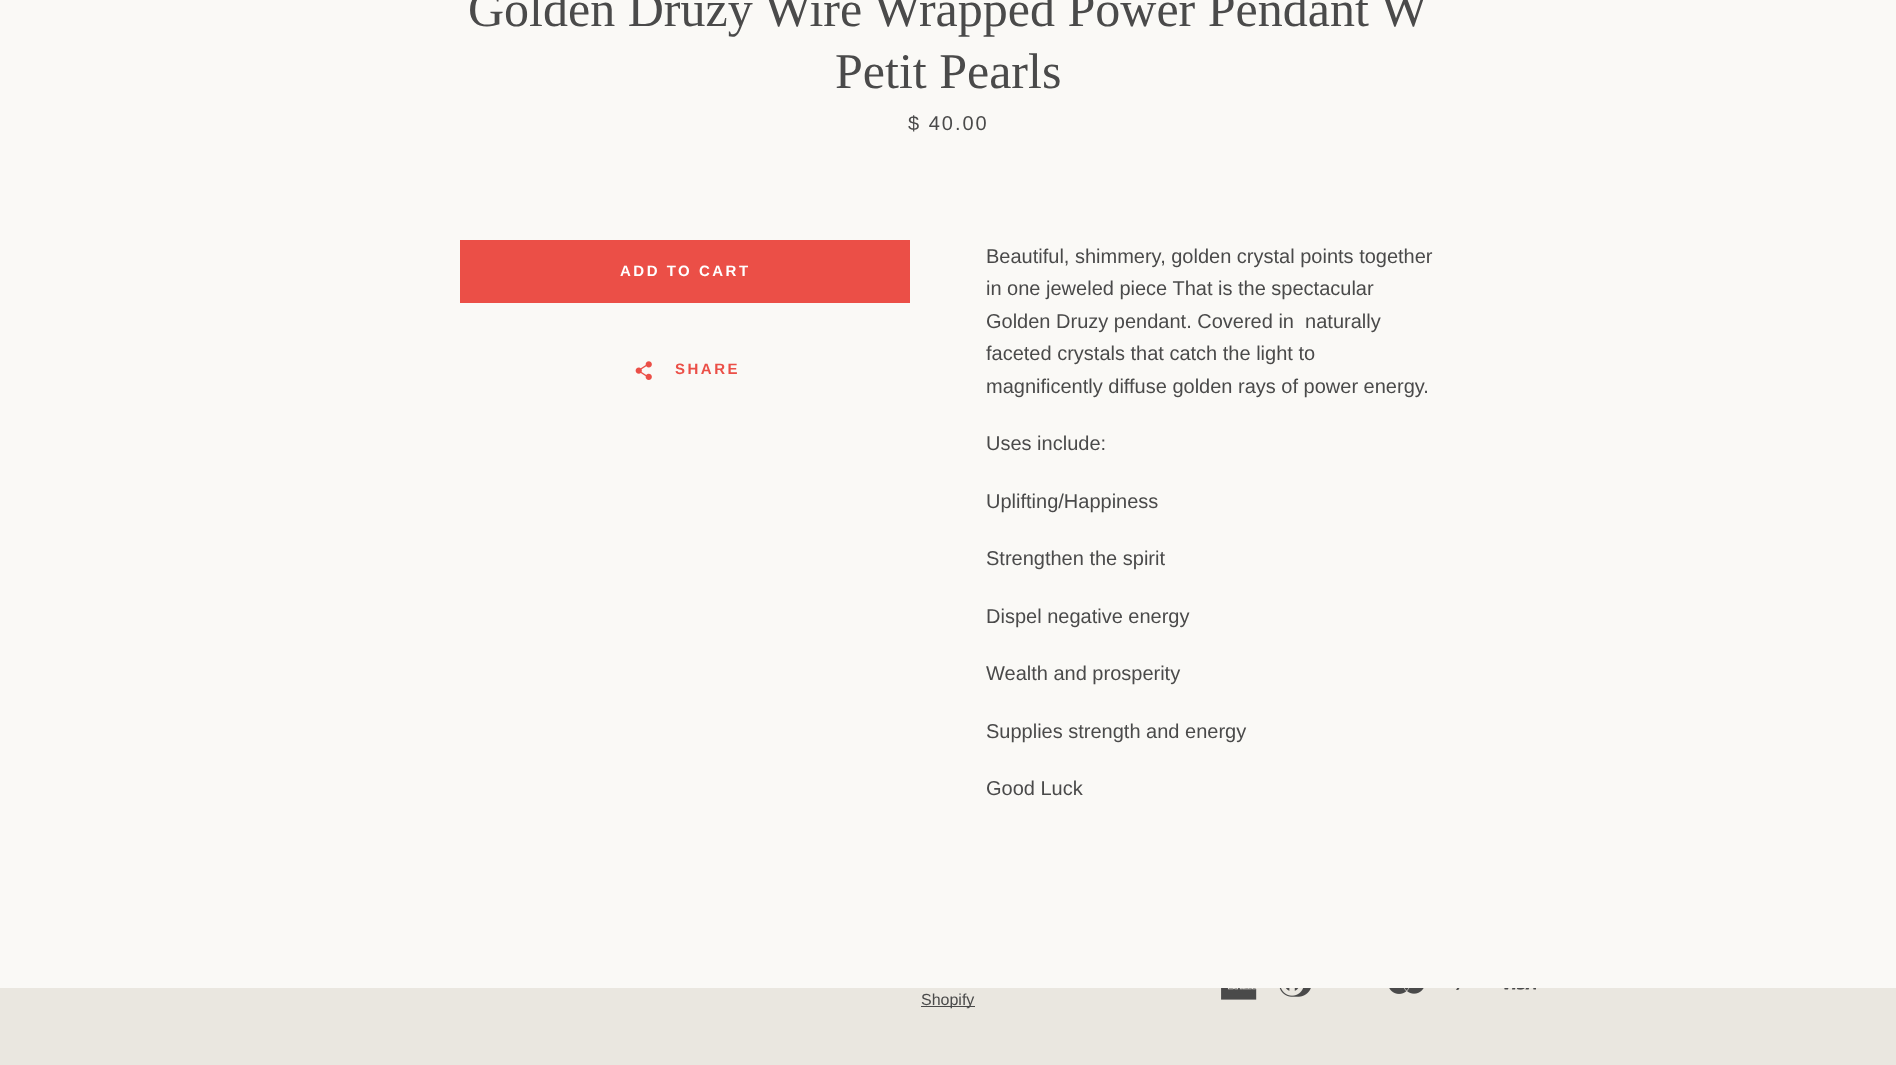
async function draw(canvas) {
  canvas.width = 1896;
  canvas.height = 1065;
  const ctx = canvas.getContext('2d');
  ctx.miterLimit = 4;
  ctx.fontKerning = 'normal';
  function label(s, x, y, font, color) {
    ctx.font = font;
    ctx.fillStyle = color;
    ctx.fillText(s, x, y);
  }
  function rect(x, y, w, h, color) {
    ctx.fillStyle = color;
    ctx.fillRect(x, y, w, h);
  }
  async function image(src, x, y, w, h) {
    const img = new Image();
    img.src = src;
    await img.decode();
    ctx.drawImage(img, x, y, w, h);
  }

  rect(0, 0, 1896, 1065, '#eae7e0');
  rect(0, 0, 1896, 988, '#faf9f6');
  label('Golden Druzy Wire Wrapped Power Pendant W', 468, 26, '50px Liberation Serif', '#4a4a4a');
  label('Petit Pearls', 835, 88, '50px Liberation Serif', '#4a4a4a');
  ctx.letterSpacing = '2px';
  label('$ 40.00', 908, 130, '20px Liberation Sans', '#4a4a4a');
  rect(460, 240, 450, 63, '#eb4f47');
  ctx.letterSpacing = '2.5px';
  label('ADD TO CART', 620, 276, 'bold 15px Liberation Sans', '#fff');
  await image('assets/img1.png', 635, 361, 17, 19);
  label('SHARE', 675, 374, 'bold 15px Liberation Sans', '#eb4f47');
  ctx.letterSpacing = '0px';
  label('Beautiful, shimmery, golden crystal points together', 986, 263, '20px Liberation Sans', '#4a4a4a');
  label('in one jeweled piece That is the spectacular', 986, 295, '20px Liberation Sans', '#4a4a4a');
  label('Golden Druzy pendant. Covered in  naturally', 986, 328, '20px Liberation Sans', '#4a4a4a');
  label('faceted crystals that catch the light to', 986, 360, '20px Liberation Sans', '#4a4a4a');
  label('magnificently diffuse golden rays of power energy.', 986, 393, '20px Liberation Sans', '#4a4a4a');
  label('Uses include:', 986, 450, '20px Liberation Sans', '#4a4a4a');
  label('Uplifting/Happiness', 986, 508, '20px Liberation Sans', '#4a4a4a');
  label('Strengthen the spirit', 986, 565, '20px Liberation Sans', '#4a4a4a');
  label('Dispel negative energy', 986, 623, '20px Liberation Sans', '#4a4a4a');
  label('Wealth and prosperity', 986, 680, '20px Liberation Sans', '#4a4a4a');
  label('Supplies strength and energy', 986, 738, '20px Liberation Sans', '#4a4a4a');
  label('Good Luck', 986, 795, '20px Liberation Sans', '#4a4a4a');
  rect(921, 1006, 54, 1, '#4a4a4a');
  label('Shopify', 921, 1005, '16px Liberation Sans', '#4a4a4a');
  await image('assets/img2.png', 1221, 988, 36, 12);
  await image('assets/img3.png', 1279, 988, 32, 9);
  await image('assets/img4.png', 1389, 988, 35, 6);
  await image('assets/img5.png', 1456, 988, 4, 2);
  await image('assets/img6.png', 1504, 988, 32, 2);
}

draw(document.querySelector('canvas'));
